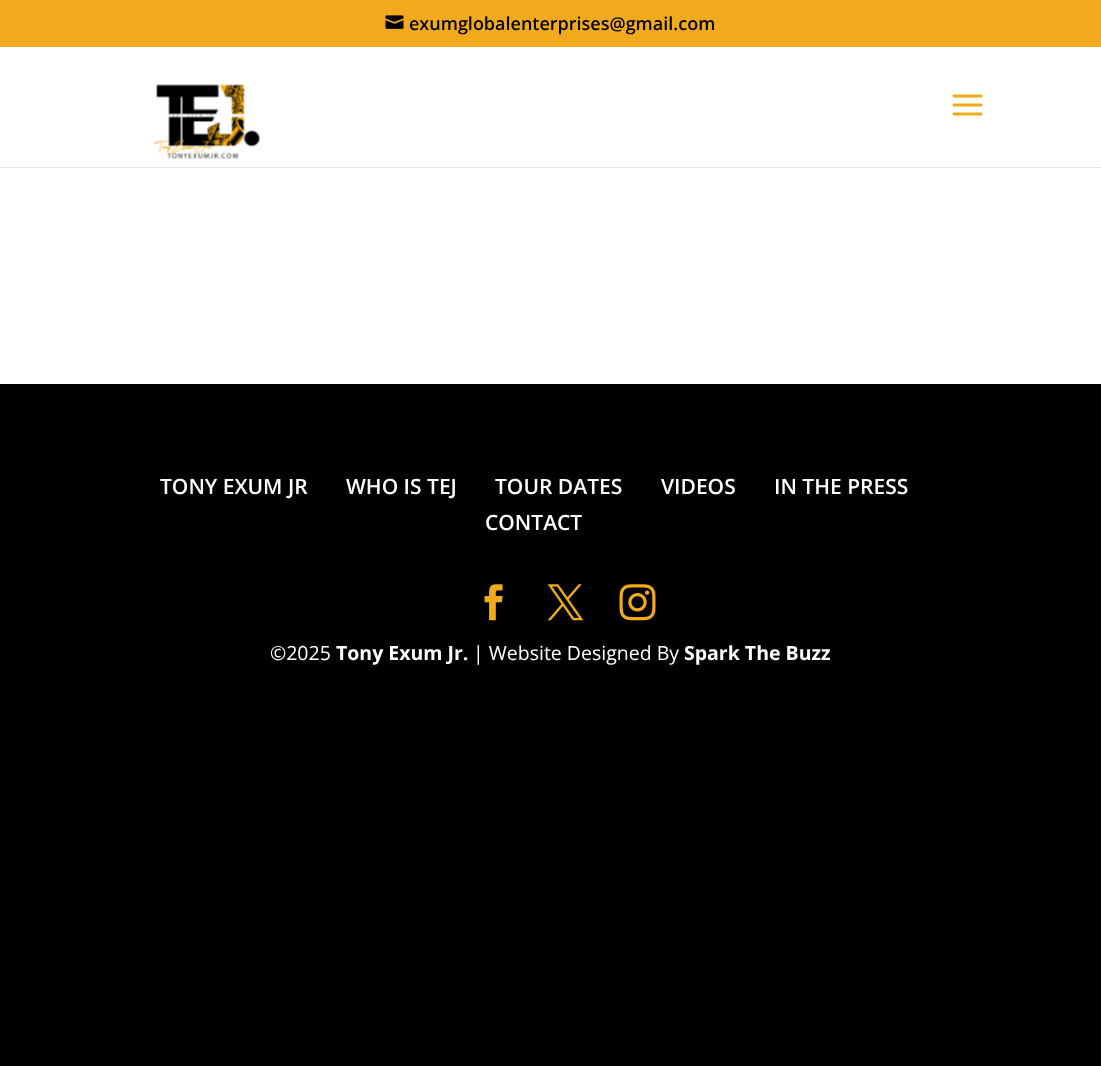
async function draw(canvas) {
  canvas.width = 1101;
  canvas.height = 1066;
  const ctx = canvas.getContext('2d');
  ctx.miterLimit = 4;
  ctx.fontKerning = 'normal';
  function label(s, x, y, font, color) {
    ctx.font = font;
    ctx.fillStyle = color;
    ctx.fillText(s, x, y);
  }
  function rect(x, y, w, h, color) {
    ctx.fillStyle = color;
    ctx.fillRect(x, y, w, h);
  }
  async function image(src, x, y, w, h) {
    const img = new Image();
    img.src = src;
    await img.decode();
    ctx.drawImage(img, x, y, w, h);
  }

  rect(0, 0, 1101, 1066, '#000');
  rect(0, 0, 1101, 47, '#f0aa1b');
  await image('assets/img1.png', 385, 15, 19, 14);
  label('exumglobalenterprises@gmail.com', 409, 30, '600 18px Open Sans', '#000');
  rect(0, 167, 1101, 1, '#e6e6e6');
  rect(0, 47, 1101, 120, '#fff');
  await image('assets/img2.png', 153, 84, 108, 75);
  await image('assets/img3.png', 952, 94, 31, 22);
  rect(0, 168, 1101, 216, '#fff');
  label('TONY EXUM JR', 160, 494, '600 21px Open Sans', '#fff');
  label('WHO IS TEJ', 346, 494, '600 21px Open Sans', '#fff');
  label('TOUR DATES', 495, 494, '600 21px Open Sans', '#fff');
  label('VIDEOS', 661, 494, '600 21px Open Sans', '#fff');
  label('IN THE PRESS', 774, 494, '600 21px Open Sans', '#fff');
  label('CONTACT', 485, 530, '600 21px Open Sans', '#fff');
  await image('assets/img4.png', 484, 584, 19, 37);
  await image('assets/img5.png', 547, 584, 37, 37);
  await image('assets/img6.png', 619, 584, 37, 37);
  label('©2025', 270, 660, '19.5px Open Sans', '#fff');
  label('Tony Exum Jr.', 336, 660, 'bold 19.5px Open Sans', '#fff');
  label('| Website Designed By', 473, 660, '19.5px Open Sans', '#fff');
  label('Spark The Buzz', 684, 660, 'bold 19.5px Open Sans', '#fff');
}

draw(document.querySelector('canvas'));
